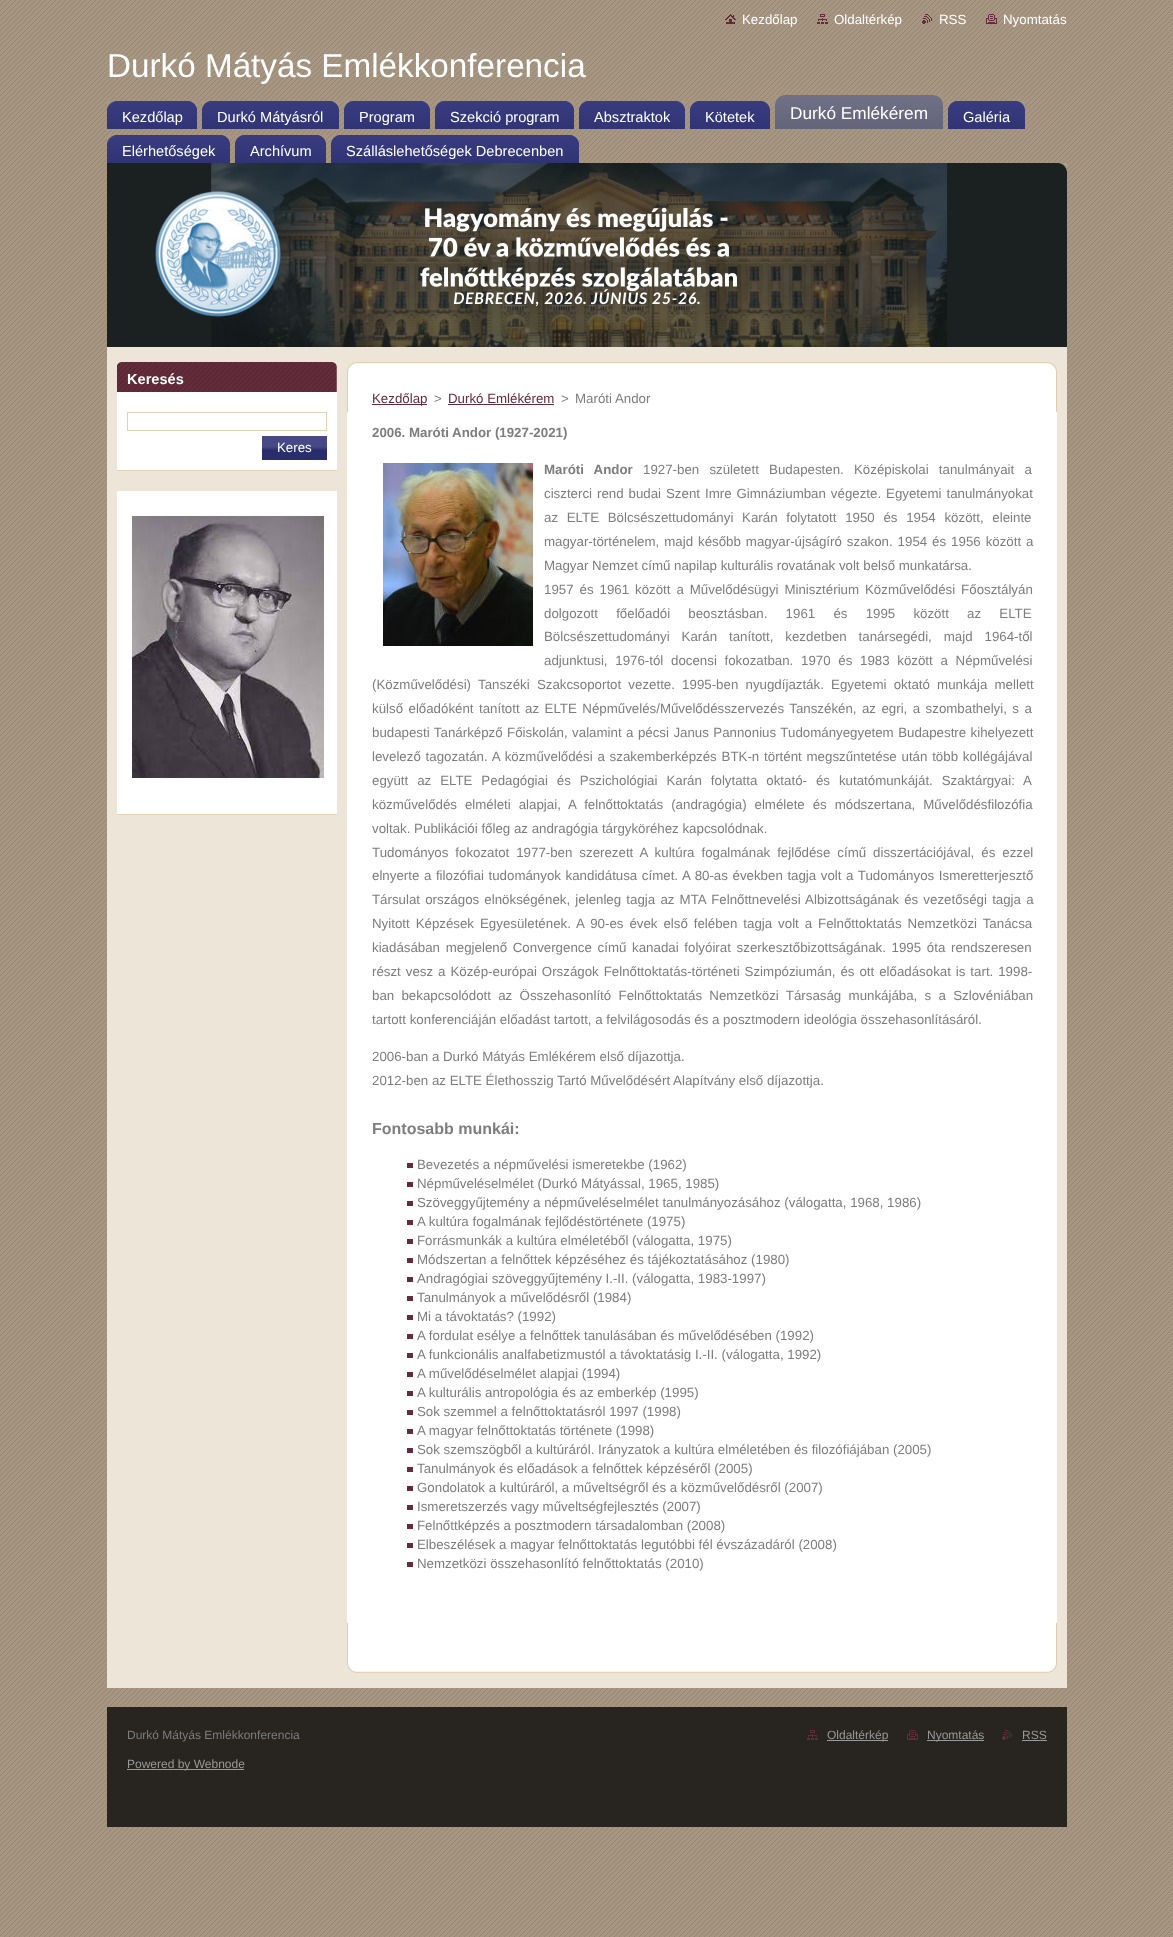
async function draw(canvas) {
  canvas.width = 1173;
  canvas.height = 1937;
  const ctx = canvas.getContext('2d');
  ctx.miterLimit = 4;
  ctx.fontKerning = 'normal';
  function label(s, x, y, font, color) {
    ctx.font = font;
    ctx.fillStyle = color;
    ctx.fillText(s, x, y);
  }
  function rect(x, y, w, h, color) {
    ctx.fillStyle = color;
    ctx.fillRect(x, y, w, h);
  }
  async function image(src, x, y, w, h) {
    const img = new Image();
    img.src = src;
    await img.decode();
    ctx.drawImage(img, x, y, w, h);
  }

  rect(0, 0, 1173, 1937, '#fff');
  await image('assets/img1.png', 0, 0, 1173, 1937);
  await image('assets/img2.png', 725, 14, 11, 10);
  label('Kezdőlap', 742, 24, '13.3px Liberation Sans', '#fff');
  await image('assets/img3.png', 817, 14, 11, 10);
  label('Oldaltérkép', 834, 24, '13.3px Liberation Sans', '#fff');
  await image('assets/img4.png', 922, 14, 10, 10);
  label('RSS', 939, 24, '13.3px Liberation Sans', '#fff');
  await image('assets/img5.png', 986, 14, 11, 10);
  label('Nyomtatás', 1003, 24, '13.3px Liberation Sans', '#fff');
  label('Durkó Mátyás Emlékkonferencia', 107, 77, '33.25px Liberation Sans', '#fff');
  await image('assets/img6.png', 107, 101, 90, 28);
  await image('assets/img7.png', 107, 101, 9, 8);
  await image('assets/img8.png', 189, 101, 8, 8);
  label('Kezdőlap', 122, 122, '14.6px Liberation Sans', '#fff');
  await image('assets/img9.png', 202, 101, 137, 28);
  await image('assets/img10.png', 202, 101, 8, 8);
  await image('assets/img8.png', 331, 101, 8, 8);
  label('Durkó Mátyásról', 217, 122, '14.6px Liberation Sans', '#fff');
  await image('assets/img11.png', 344, 101, 86, 28);
  await image('assets/img10.png', 344, 101, 8, 8);
  await image('assets/img8.png', 422, 101, 8, 8);
  label('Program', 359, 122, '14.6px Liberation Sans', '#fff');
  await image('assets/img12.png', 435, 101, 139, 28);
  await image('assets/img10.png', 435, 101, 8, 8);
  await image('assets/img8.png', 566, 101, 8, 8);
  label('Szekció program', 450, 122, '14.6px Liberation Sans', '#fff');
  await image('assets/img13.png', 579, 101, 106, 28);
  await image('assets/img10.png', 579, 101, 8, 8);
  await image('assets/img8.png', 677, 101, 8, 8);
  label('Absztraktok', 594, 122, '14.6px Liberation Sans', '#fff');
  await image('assets/img14.png', 690, 101, 80, 28);
  await image('assets/img10.png', 690, 101, 8, 8);
  await image('assets/img8.png', 762, 101, 8, 8);
  label('Kötetek', 705, 122, '14.6px Liberation Sans', '#fff');
  await image('assets/img15.png', 775, 95, 168, 34);
  await image('assets/img16.png', 775, 95, 10, 9);
  await image('assets/img17.png', 933, 95, 10, 9);
  label('Durkó Emlékérem', 790, 119, '17.25px Liberation Sans', '#fff');
  await image('assets/img18.png', 948, 101, 77, 28);
  await image('assets/img10.png', 948, 101, 8, 8);
  await image('assets/img8.png', 1017, 101, 8, 8);
  label('Galéria', 963, 122, '14.6px Liberation Sans', '#fff');
  await image('assets/img19.png', 107, 135, 123, 28);
  await image('assets/img7.png', 107, 135, 9, 8);
  await image('assets/img8.png', 222, 135, 8, 8);
  label('Elérhetőségek', 122, 156, '14.6px Liberation Sans', '#fff');
  await image('assets/img20.png', 235, 135, 91, 28);
  await image('assets/img10.png', 235, 135, 8, 8);
  await image('assets/img8.png', 318, 135, 8, 8);
  label('Archívum', 250, 156, '14.6px Liberation Sans', '#fff');
  await image('assets/img21.png', 331, 135, 248, 28);
  await image('assets/img10.png', 331, 135, 8, 8);
  await image('assets/img8.png', 571, 135, 8, 8);
  label('Szálláslehetőségek Debrecenben', 346, 156, '14.6px Liberation Sans', '#fff');
  await image('assets/img22.png', 107, 163, 960, 184);
  await image('assets/img23.png', 1058, 163, 9, 9);
  rect(107, 347, 960, 1341, '#ede5d8');
  rect(117, 392, 220, 78, '#fff');
  rect(117, 470, 220, 1, '#e1d1b5');
  await image('assets/img24.png', 117, 362, 220, 30);
  label('Keresés', 127, 384, 'bold 14.6px Liberation Sans', '#fff');
  ctx.strokeStyle = '#e1d1b5';
  ctx.strokeRect(127.5, 412.5, 199, 18);
  await image('assets/img25.png', 262, 436, 65, 24);
  label('Keres', 277, 452, '13.3px Liberation Sans', '#fff');
  rect(117, 491, 220, 323, '#fff');
  rect(117, 814, 220, 1, '#e1d1b5');
  await image('assets/img26.png', 132, 516, 192, 262);
  await image('assets/img27.png', 347, 362, 710, 50);
  await image('assets/img28.png', 347, 1623, 710, 50);
  rect(347, 412, 710, 1211, '#fff');
  rect(372, 404, 55, 1, '#632c3b');
  label('Kezdőlap', 372, 403, '13.3px Liberation Sans', '#632c3b');
  label('>', 434, 403, '13.3px Liberation Sans', '#7d7d7d');
  label('Durkó Emlékérem', 448, 403, '13.3px Liberation Sans', '#632c3b');
  rect(448, 404, 106, 1, '#632c3b');
  label('>', 561, 403, '13.3px Liberation Sans', '#7d7d7d');
  label('Maróti Andor', 575, 403, '13.3px Liberation Sans', '#7d7d7d');
  label('2006. Maróti Andor (1927-2021)', 372, 437, 'bold 13.3px Liberation Sans', '#7d7d7d');
  await image('assets/img29.png', 383, 463, 150, 183);
  ctx.wordSpacing = '6.5px';
  label('Maróti Andor', 544, 474, 'bold 13.3px Liberation Sans', '#7d7d7d');
  label('1927-ben született Budapesten. Középiskolai tanulmányait a', 643, 474, '13.3px Liberation Sans', '#7d7d7d');
  ctx.wordSpacing = '1.25px';
  label('ciszterci rend budai Szent Imre Gimnáziumban végezte. Egyetemi tanulmányokat', 544, 498, '13.3px Liberation Sans', '#7d7d7d');
  ctx.wordSpacing = '5px';
  label('az ELTE Bölcsészettudományi Karán folytatott 1950 és 1954 között, eleinte', 544, 522, '13.3px Liberation Sans', '#7d7d7d');
  ctx.wordSpacing = '1.25px';
  label('magyar-történelem, majd később magyar-újságíró szakon. 1954 és 1956 között a', 544, 546, '13.3px Liberation Sans', '#7d7d7d');
  ctx.wordSpacing = '0px';
  label('Magyar Nemzet című napilap kulturális rovatának volt belső munkatársa.', 544, 570, '13.3px Liberation Sans', '#7d7d7d');
  ctx.wordSpacing = '2.25px';
  label('1957 és 1961 között a Művelődésügyi Minisztérium Közművelődési Főosztályán', 544, 594, '13.3px Liberation Sans', '#7d7d7d');
  ctx.wordSpacing = '14.5px';
  label('dolgozott főelőadói beosztásban. 1961 és 1995 között az ELTE', 544, 618, '13.3px Liberation Sans', '#7d7d7d');
  ctx.wordSpacing = '8.25px';
  label('Bölcsészettudományi Karán tanított, kezdetben tanársegédi, majd 1964-től', 544, 641, '13.3px Liberation Sans', '#7d7d7d');
  ctx.wordSpacing = '4px';
  label('adjunktusi, 1976-tól docensi fokozatban. 1970 és 1983 között a Népművelési', 544, 665, '13.3px Liberation Sans', '#7d7d7d');
  ctx.wordSpacing = '3.5px';
  label('(Közművelődési) Tanszéki Szakcsoportot vezette. 1995-ben nyugdíjazták. Egyetemi oktató munkája mellett', 372, 689, '13.3px Liberation Sans', '#7d7d7d');
  ctx.wordSpacing = '1.75px';
  label('külső előadóként tanított az ELTE Népművelés/Művelődésszervezés Tanszékén, az egri, a szombathelyi, s a', 372, 713, '13.3px Liberation Sans', '#7d7d7d');
  ctx.wordSpacing = '0.75px';
  label('budapesti Tanárképző Főiskolán, valamint a pécsi Janus Pannonius Tudományegyetem Budapestre kihelyezett', 372, 737, '13.3px Liberation Sans', '#7d7d7d');
  ctx.wordSpacing = '1.1px';
  label('levelező tagozatán. A közművelődési a szakemberképzés BTK-n történt megszűntetése után több kollégájával', 372, 761, '13.3px Liberation Sans', '#7d7d7d');
  ctx.wordSpacing = '5.25px';
  label('együtt az ELTE Pedagógiai és Pszichológiai Karán folytatta oktató- és kutatómunkáját. Szaktárgyai: A', 372, 785, '13.3px Liberation Sans', '#7d7d7d');
  ctx.wordSpacing = '4.25px';
  label('közművelődés elméleti alapjai, A felnőttoktatás (andragógia) elmélete és módszertana, Művelődésfilozófia', 372, 809, '13.3px Liberation Sans', '#7d7d7d');
  ctx.wordSpacing = '0px';
  label('voltak. Publikációi főleg az andragógia tárgyköréhez kapcsolódnak.', 372, 833, '13.3px Liberation Sans', '#7d7d7d');
  ctx.wordSpacing = '3.25px';
  label('Tudományos fokozatot 1977-ben szerezett A kultúra fogalmának fejlődése című disszertációjával, és ezzel', 372, 857, '13.3px Liberation Sans', '#7d7d7d');
  ctx.wordSpacing = '0.9px';
  label('elnyerte a filozófiai tudományok kandidátusa címet. A 80-as években tagja volt a Tudományos Ismeretterjesztő', 372, 880, '13.3px Liberation Sans', '#7d7d7d');
  ctx.wordSpacing = '1.5px';
  label('Társulat országos elnökségének, jelenleg tagja az MTA Felnőttnevelési Albizottságának és vezetőségi tagja a', 372, 904, '13.3px Liberation Sans', '#7d7d7d');
  ctx.wordSpacing = '2.25px';
  label('Nyitott Képzések Egyesületének. A 90-es évek első felében tagja volt a Felnőttoktatás Nemzetközi Tanácsa', 372, 928, '13.3px Liberation Sans', '#7d7d7d');
  ctx.wordSpacing = '2px';
  label('kiadásában megjelenő Convergence című kanadai folyóirat szerkesztőbizottságának. 1995 óta rendszeresen', 372, 952, '13.3px Liberation Sans', '#7d7d7d');
  ctx.wordSpacing = '1.25px';
  label('részt vesz a Közép-európai Országok Felnőttoktatás-történeti Szimpóziumán, és ott előadásokat is tart. 1998-', 372, 976, '13.3px Liberation Sans', '#7d7d7d');
  ctx.wordSpacing = '3.6px';
  label('ban bekapcsolódott az Összehasonlító Felnőttoktatás Nemzetközi Társaság munkájába, s a Szlovéniában', 372, 1000, '13.3px Liberation Sans', '#7d7d7d');
  ctx.wordSpacing = '0px';
  label('tartott konferenciáján előadást tartott, a felvilágosodás és a posztmodern ideológia összehasonlításáról.', 372, 1024, '13.3px Liberation Sans', '#7d7d7d');
  label('2006-ban a Durkó Mátyás Emlékérem első díjazottja.', 372, 1061, '13.3px Liberation Sans', '#7d7d7d');
  label('2012-ben az ELTE Élethosszig Tartó Művelődésért Alapítvány első díjazottja.', 372, 1085, '13.3px Liberation Sans', '#7d7d7d');
  label('Fontosabb munkái:', 372, 1134, 'bold 16px Liberation Sans', '#7d7d7d');
  rect(407, 1163, 6, 5, '#622c3a');
  label('Bevezetés a népművelési ismeretekbe (1962)', 417, 1169, '13.3px Liberation Sans', '#7d7d7d');
  rect(407, 1182, 6, 5, '#622c3a');
  label('Népműveléselmélet (Durkó Mátyással, 1965, 1985)', 417, 1188, '13.3px Liberation Sans', '#7d7d7d');
  rect(407, 1201, 6, 5, '#622c3a');
  label('Szöveggyűjtemény a népműveléselmélet tanulmányozásához (válogatta, 1968, 1986)', 417, 1207, '13.3px Liberation Sans', '#7d7d7d');
  rect(407, 1220, 6, 5, '#622c3a');
  label('A kultúra fogalmának fejlődéstörténete (1975)', 417, 1226, '13.3px Liberation Sans', '#7d7d7d');
  rect(407, 1239, 6, 5, '#622c3a');
  label('Forrásmunkák a kultúra elméletéből (válogatta, 1975)', 417, 1245, '13.3px Liberation Sans', '#7d7d7d');
  rect(407, 1258, 6, 5, '#622c3a');
  label('Módszertan a felnőttek képzéséhez és tájékoztatásához (1980)', 417, 1264, '13.3px Liberation Sans', '#7d7d7d');
  rect(407, 1277, 6, 5, '#622c3a');
  label('Andragógiai szöveggyűjtemény I.-II. (válogatta, 1983-1997)', 417, 1283, '13.3px Liberation Sans', '#7d7d7d');
  rect(407, 1296, 6, 5, '#622c3a');
  label('Tanulmányok a művelődésről (1984)', 417, 1302, '13.3px Liberation Sans', '#7d7d7d');
  rect(407, 1315, 6, 5, '#622c3a');
  label('Mi a távoktatás? (1992)', 417, 1321, '13.3px Liberation Sans', '#7d7d7d');
  rect(407, 1334, 6, 5, '#622c3a');
  label('A fordulat esélye a felnőttek tanulásában és művelődésében (1992)', 417, 1340, '13.3px Liberation Sans', '#7d7d7d');
  rect(407, 1353, 6, 5, '#622c3a');
  label('A funkcionális analfabetizmustól a távoktatásig I.-II. (válogatta, 1992)', 417, 1359, '13.3px Liberation Sans', '#7d7d7d');
  rect(407, 1372, 6, 5, '#622c3a');
  label('A művelődéselmélet alapjai (1994)', 417, 1378, '13.3px Liberation Sans', '#7d7d7d');
  rect(407, 1391, 6, 5, '#622c3a');
  label('A kulturális antropológia és az emberkép (1995)', 417, 1397, '13.3px Liberation Sans', '#7d7d7d');
  rect(407, 1410, 6, 5, '#622c3a');
  label('Sok szemmel a felnőttoktatásról 1997 (1998)', 417, 1416, '13.3px Liberation Sans', '#7d7d7d');
  rect(407, 1429, 6, 5, '#622c3a');
  label('A magyar felnőttoktatás története (1998)', 417, 1435, '13.3px Liberation Sans', '#7d7d7d');
  rect(407, 1448, 6, 5, '#622c3a');
  label('Sok szemszögből a kultúráról. Irányzatok a kultúra elméletében és filozófiájában (2005)', 417, 1454, '13.3px Liberation Sans', '#7d7d7d');
  rect(407, 1467, 6, 5, '#622c3a');
  label('Tanulmányok és előadások a felnőttek képzéséről (2005)', 417, 1473, '13.3px Liberation Sans', '#7d7d7d');
  rect(407, 1486, 6, 5, '#622c3a');
  label('Gondolatok a kultúráról, a műveltségről és a közművelődésről (2007)', 417, 1492, '13.3px Liberation Sans', '#7d7d7d');
  rect(407, 1505, 6, 5, '#622c3a');
  label('Ismeretszerzés vagy műveltségfejlesztés (2007)', 417, 1511, '13.3px Liberation Sans', '#7d7d7d');
  rect(407, 1524, 6, 5, '#622c3a');
  label('Felnőttképzés a posztmodern társadalomban (2008)', 417, 1530, '13.3px Liberation Sans', '#7d7d7d');
  rect(407, 1543, 6, 5, '#622c3a');
  label('Elbeszélések a magyar felnőttoktatás legutóbbi fél évszázadáról (2008)', 417, 1549, '13.3px Liberation Sans', '#7d7d7d');
  rect(407, 1562, 6, 5, '#622c3a');
  label('Nemzetközi összehasonlító felnőttoktatás (2010)', 417, 1568, '13.3px Liberation Sans', '#7d7d7d');
  rect(107, 1707, 960, 120, '#28241f');
  label('Durkó Mátyás Emlékkonferencia', 127, 1739, '12px Liberation Sans', '#7d7d7d');
  rect(127, 1769, 117, 1, '#999');
  label('Powered by Webnode', 127, 1768, '12px Liberation Sans', '#999');
  await image('assets/img30.png', 807, 1730, 11, 10);
  rect(827, 1740, 61, 1, '#999');
  label('Oldaltérkép', 827, 1739, '12px Liberation Sans', '#999');
  await image('assets/img31.png', 907, 1730, 11, 10);
  rect(927, 1740, 57, 1, '#999');
  label('Nyomtatás', 927, 1739, '12px Liberation Sans', '#999');
  await image('assets/img32.png', 1002, 1730, 10, 10);
  label('RSS', 1022, 1739, '12px Liberation Sans', '#999');
  rect(1022, 1740, 25, 1, '#999');
}

draw(document.querySelector('canvas'));
